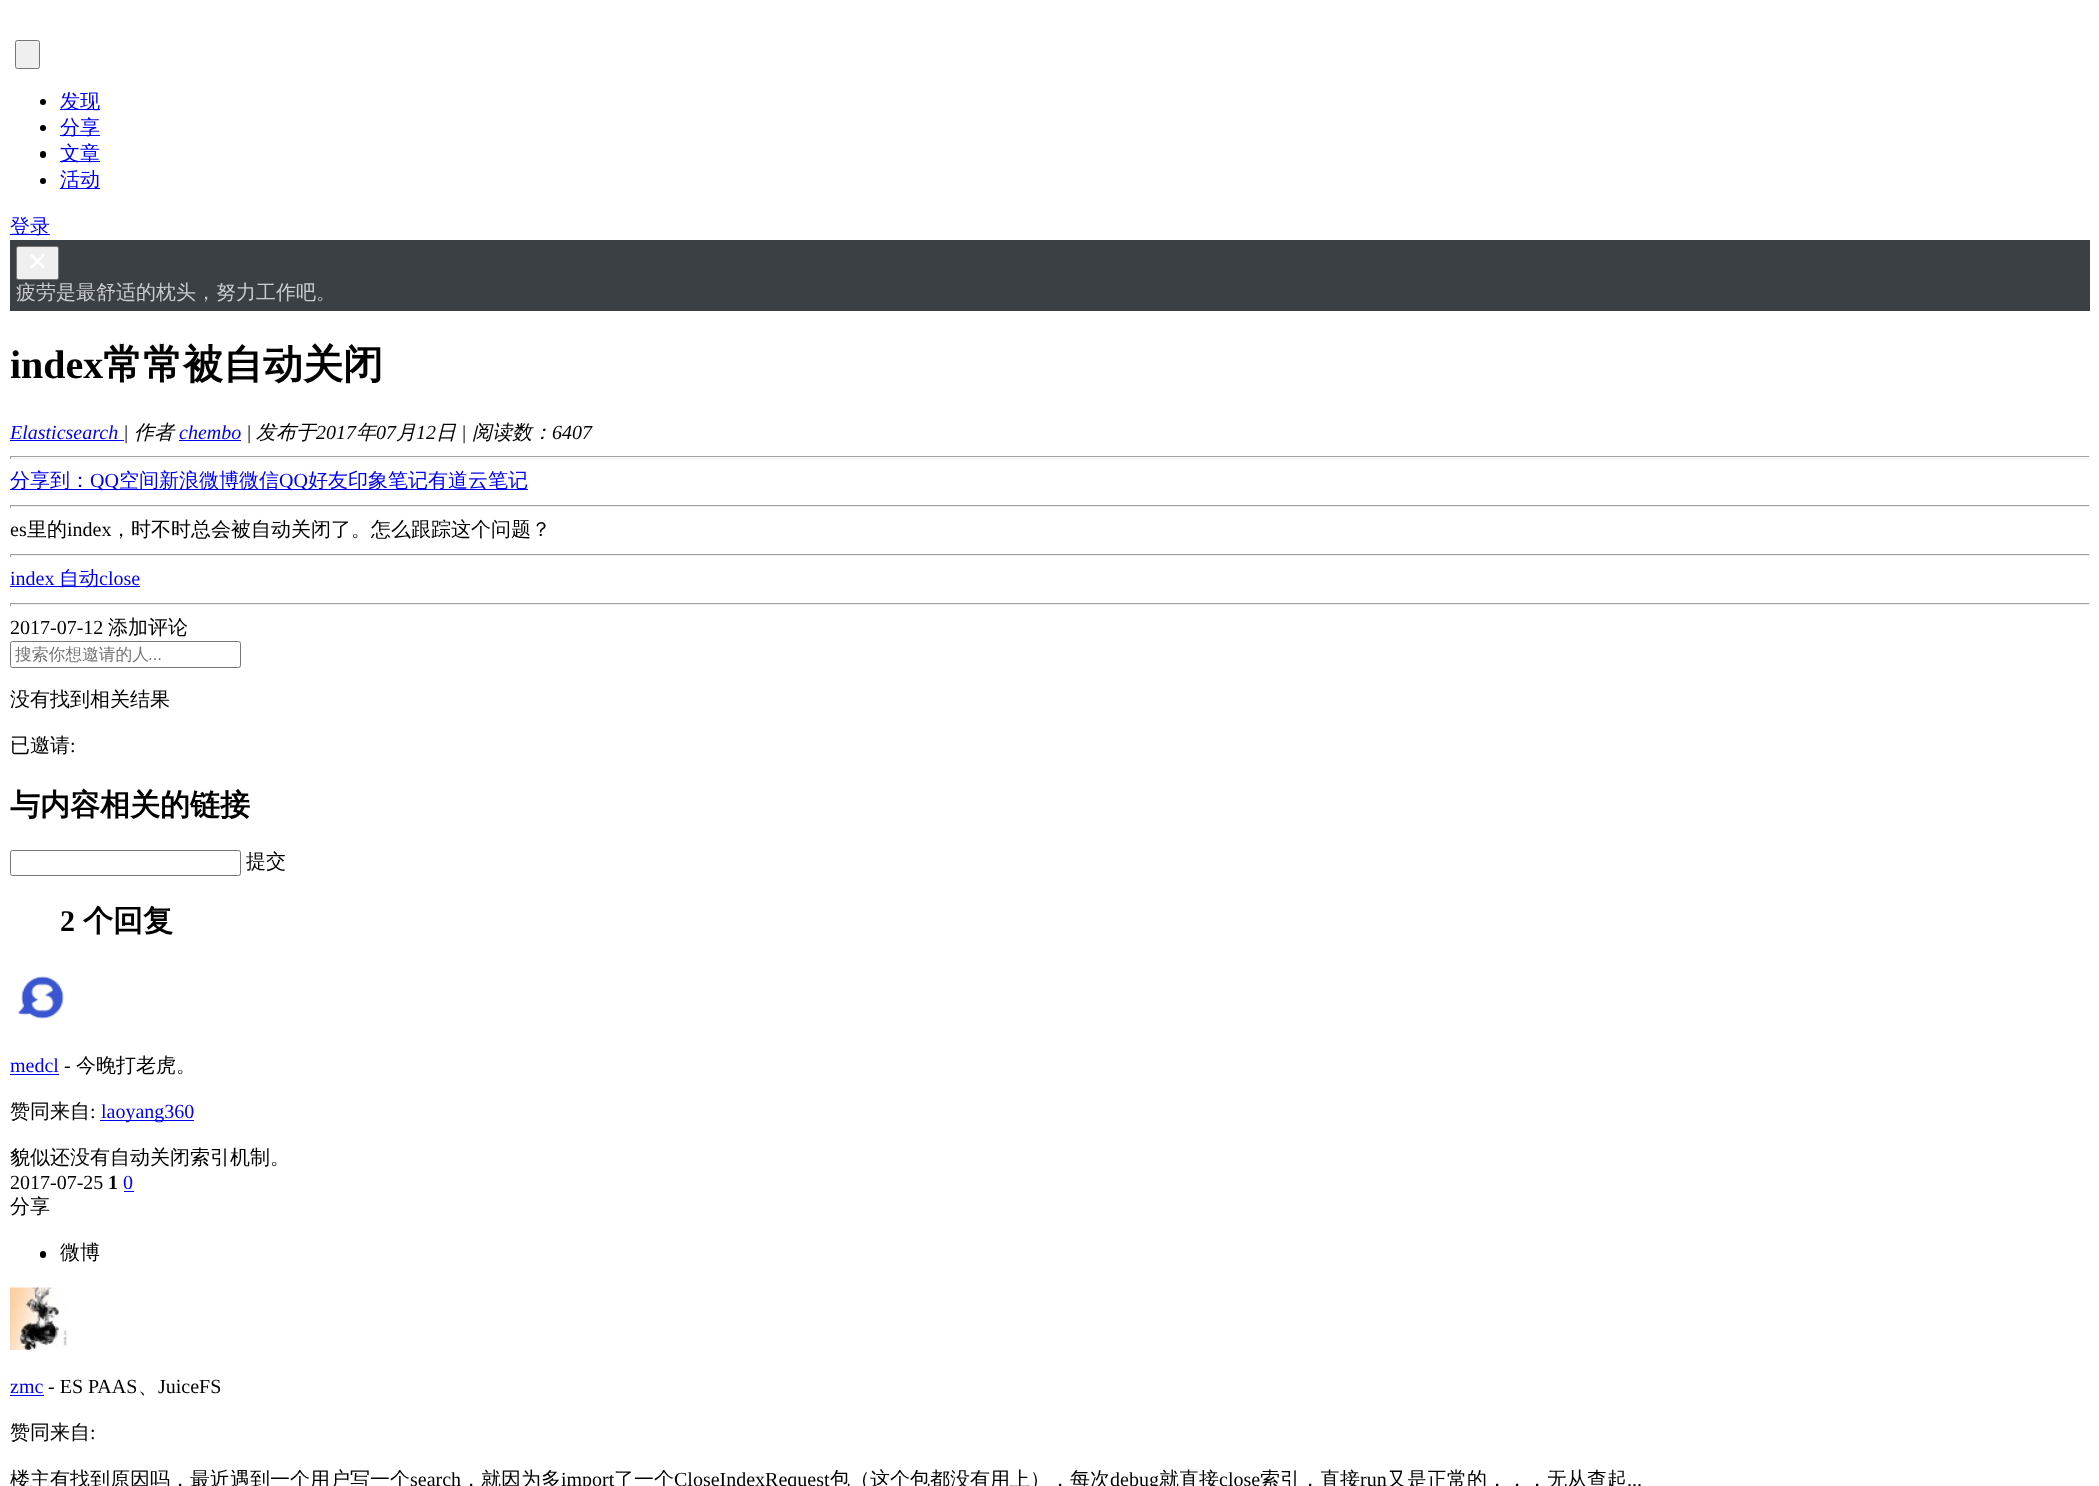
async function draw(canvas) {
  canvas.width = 2099;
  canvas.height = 1486;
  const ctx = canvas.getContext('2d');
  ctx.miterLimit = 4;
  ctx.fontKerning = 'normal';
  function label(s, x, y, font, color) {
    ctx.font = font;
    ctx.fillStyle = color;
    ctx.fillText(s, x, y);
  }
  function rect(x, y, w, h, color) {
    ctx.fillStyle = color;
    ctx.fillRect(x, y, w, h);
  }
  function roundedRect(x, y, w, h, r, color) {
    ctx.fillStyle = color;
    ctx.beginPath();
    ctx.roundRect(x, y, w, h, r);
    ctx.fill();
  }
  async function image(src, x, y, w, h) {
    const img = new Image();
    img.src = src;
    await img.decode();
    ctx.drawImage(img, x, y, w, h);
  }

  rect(0, 0, 2099, 1486, '#fff');
  ctx.fillStyle = '#efefef';
  ctx.beginPath();
  ctx.roundRect(15.5, 40.5, 24, 28, 2);
  ctx.fill();
  ctx.strokeStyle = '#767676';
  ctx.stroke();
  ctx.fillStyle = '#000';
  ctx.beginPath();
  ctx.arc(43, 102, 3, 0, 2 * Math.PI);
  ctx.fill();
  rect(60, 109, 40, 1, '#00e');
  label('发现', 60, 108, '500 20px WenQuanYi Zen Hei', '#00e');
  ctx.fillStyle = '#000';
  ctx.beginPath();
  ctx.arc(43, 128, 3, 0, 2 * Math.PI);
  ctx.fill();
  rect(60, 135, 40, 1, '#00e');
  label('分享', 60, 134, '500 20px WenQuanYi Zen Hei', '#00e');
  roundedRect(40, 151, 6, 7, 3, '#000');
  rect(60, 161, 40, 1, '#00e');
  label('文章', 60, 160, '500 20px WenQuanYi Zen Hei', '#00e');
  ctx.fillStyle = '#000';
  ctx.beginPath();
  ctx.arc(43, 181, 3, 0, 2 * Math.PI);
  ctx.fill();
  rect(60, 188, 40, 1, '#00e');
  label('活动', 60, 186, '500 20px WenQuanYi Zen Hei', '#00e');
  rect(10, 234, 40, 1, '#00e');
  label('登录', 10, 233, '500 20px WenQuanYi Zen Hei', '#00e');
  rect(10, 240, 2080, 71, '#3b4045');
  ctx.fillStyle = '#efefef';
  ctx.beginPath();
  ctx.roundRect(16.5, 246.5, 42, 33, 2);
  ctx.fill();
  ctx.stroke();
  await image('assets/img1.png', 30, 254, 15, 15);
  label('疲劳是最舒适的枕头，努力工作吧。', 16, 299, '500 20px WenQuanYi Zen Hei', '#c9cccf');
  label('index', 10, 378, 'bold 40px Liberation Serif', '#000');
  label('常常被自动关闭', 103, 378, 'bold 40px WenQuanYi Zen Hei', '#000');
  label('Elasticsearch', 10, 439, 'italic 20px Liberation Serif', '#00e');
  label('|', 123, 439, 'italic 20px Liberation Serif', '#000');
  rect(10, 440, 114, 1, '#00e');
  label('作者', 134, 439, 'italic 500 20px WenQuanYi Zen Hei', '#000');
  label('chembo', 179, 439, 'italic 20px Liberation Serif', '#00e');
  rect(179, 440, 62, 1, '#00e');
  label('|', 246, 439, 'italic 20px Liberation Serif', '#000');
  label('发布于', 256, 439, 'italic 500 20px WenQuanYi Zen Hei', '#000');
  label('2017', 316, 439, 'italic 20px Liberation Serif', '#000');
  label('年', 356, 439, 'italic 500 20px WenQuanYi Zen Hei', '#000');
  label('07', 376, 439, 'italic 20px Liberation Serif', '#000');
  label('月', 396, 439, 'italic 500 20px WenQuanYi Zen Hei', '#000');
  label('12', 416, 439, 'italic 20px Liberation Serif', '#000');
  label('日', 436, 439, 'italic 500 20px WenQuanYi Zen Hei', '#000');
  label('|', 461, 439, 'italic 20px Liberation Serif', '#000');
  label('阅读数：', 472, 439, 'italic 500 20px WenQuanYi Zen Hei', '#000');
  label('6407', 552, 439, 'italic 20px Liberation Serif', '#000');
  rect(10, 456, 2080, 1, '#9f9f9f');
  rect(2089, 456, 1, 3, '#eee');
  rect(10, 458, 2080, 1, '#eee');
  rect(10, 456, 1, 3, '#9f9f9f');
  rect(10, 489, 518, 1, '#00e');
  label('分享到：', 10, 487, '500 20px WenQuanYi Zen Hei', '#00e');
  label('QQ', 90, 487, '20px Liberation Serif', '#00e');
  label('空间新浪微博微信', 119, 487, '500 20px WenQuanYi Zen Hei', '#00e');
  label('QQ', 279, 487, '20px Liberation Serif', '#00e');
  label('好友印象笔记有道云笔记', 308, 487, '500 20px WenQuanYi Zen Hei', '#00e');
  rect(10, 505, 2080, 1, '#9f9f9f');
  rect(2089, 505, 1, 3, '#eee');
  rect(10, 506, 2080, 1, '#eee');
  rect(10, 505, 1, 3, '#9f9f9f');
  label('es', 10, 536, '20px Liberation Serif', '#000');
  label('里的', 27, 536, '500 20px WenQuanYi Zen Hei', '#000');
  label('index', 67, 536, '20px Liberation Serif', '#000');
  label('，时不时总会被自动关闭了。怎么跟踪这个问题？', 111, 536, '500 20px WenQuanYi Zen Hei', '#000');
  rect(10, 554, 2080, 1, '#9f9f9f');
  rect(2089, 554, 1, 3, '#eee');
  rect(10, 555, 2080, 1, '#eee');
  rect(10, 554, 1, 3, '#9f9f9f');
  label('index', 10, 585, '20px Liberation Serif', '#00e');
  rect(10, 586, 130, 1, '#00e');
  label('自动', 59, 585, '500 20px WenQuanYi Zen Hei', '#00e');
  label('close', 99, 585, '20px Liberation Serif', '#00e');
  rect(10, 603, 2080, 1, '#9f9f9f');
  rect(2089, 603, 1, 3, '#eee');
  rect(10, 604, 2080, 1, '#eee');
  rect(10, 603, 1, 3, '#9f9f9f');
  label('2017-07-12', 10, 634, '20px Liberation Serif', '#000');
  label('添加评论', 108, 634, '500 20px WenQuanYi Zen Hei', '#000');
  ctx.beginPath();
  ctx.roundRect(10.5, 641.5, 230, 26, 2);
  ctx.stroke();
  label('搜索你想邀请的人', 15, 660, '500 16.75px WenQuanYi Zen Hei', '#757575');
  label('...', 148, 660, '16.75px Liberation Sans', '#757575');
  label('没有找到相关结果', 10, 706, '500 20px WenQuanYi Zen Hei', '#000');
  label('已邀请', 10, 752, '500 20px WenQuanYi Zen Hei', '#000');
  label(':', 70, 752, '20px Liberation Serif', '#000');
  label('与内容相关的链接', 10, 815, 'bold 30px WenQuanYi Zen Hei', '#000');
  ctx.beginPath();
  ctx.roundRect(10.5, 850.5, 230, 25, 2);
  ctx.stroke();
  label('提交', 246, 868, '500 20px WenQuanYi Zen Hei', '#000');
  label('2', 60, 931, 'bold 30px Liberation Serif', '#000');
  label('个回复', 83, 931, 'bold 30px WenQuanYi Zen Hei', '#000');
  await image('assets/img2.png', 17, 976, 47, 43);
  label('medcl', 10, 1072, '20px Liberation Serif', '#00e');
  rect(10, 1074, 49, 1, '#00e');
  label('-', 64, 1072, '20px Liberation Serif', '#000');
  label('今晚打老虎。', 76, 1072, '500 20px WenQuanYi Zen Hei', '#000');
  label('赞同来自', 10, 1118, '500 20px WenQuanYi Zen Hei', '#000');
  label(':', 90, 1118, '20px Liberation Serif', '#000');
  rect(100, 1120, 94, 1, '#00e');
  label('laoyang360', 101, 1118, '20px Liberation Serif', '#00e');
  label('貌似还没有自动关闭索引机制。', 10, 1164, '500 20px WenQuanYi Zen Hei', '#000');
  label('2017-07-25', 10, 1189, '20px Liberation Serif', '#000');
  label('1', 108, 1189, 'bold 20px Liberation Serif', '#000');
  label('0', 123, 1189, '20px Liberation Serif', '#00e');
  rect(124, 1191, 10, 1, '#00e');
  label('分享', 10, 1213, '500 20px WenQuanYi Zen Hei', '#000');
  roundedRect(40, 1251, 6, 7, 3, '#000');
  label('微博', 60, 1259, '500 20px WenQuanYi Zen Hei', '#000');
  await image('assets/img3.png', 10, 1287, 59, 63);
  label('zmc', 10, 1393, '20px Liberation Serif', '#00e');
  rect(10, 1395, 34, 1, '#00e');
  label('- ES PAAS', 48, 1393, '20px Liberation Serif', '#000');
  label('、', 138, 1393, '500 20px WenQuanYi Zen Hei', '#000');
  label('JuiceFS', 158, 1393, '20px Liberation Serif', '#000');
  label('赞同来自', 10, 1439, '500 20px WenQuanYi Zen Hei', '#000');
  label(':', 90, 1439, '20px Liberation Serif', '#000');
  label('楼主有找到原因吗，最近遇到一个用户写一个', 10, 1486, '500 20px WenQuanYi Zen Hei', '#000');
  label('search', 410, 1486, '20px Liberation Serif', '#000');
  label('，就因为多', 461, 1486, '500 20px WenQuanYi Zen Hei', '#000');
  label('import', 561, 1486, '20px Liberation Serif', '#000');
  label('了一个', 614, 1486, '500 20px WenQuanYi Zen Hei', '#000');
  label('CloseIndexRequest', 674, 1486, '20px Liberation Serif', '#000');
  label('包（这个包都没有用上），每次', 830, 1486, '500 20px WenQuanYi Zen Hei', '#000');
  label('debug', 1110, 1486, '20px Liberation Serif', '#000');
  label('就直接', 1159, 1486, '500 20px WenQuanYi Zen Hei', '#000');
  label('close', 1219, 1486, '20px Liberation Serif', '#000');
  label('索引，直接', 1260, 1486, '500 20px WenQuanYi Zen Hei', '#000');
  label('run', 1360, 1486, '20px Liberation Serif', '#000');
  label('又是正常的，，，无从查起', 1387, 1486, '500 20px WenQuanYi Zen Hei', '#000');
  label('...', 1627, 1486, '20px Liberation Serif', '#000');
}

draw(document.querySelector('canvas'));
